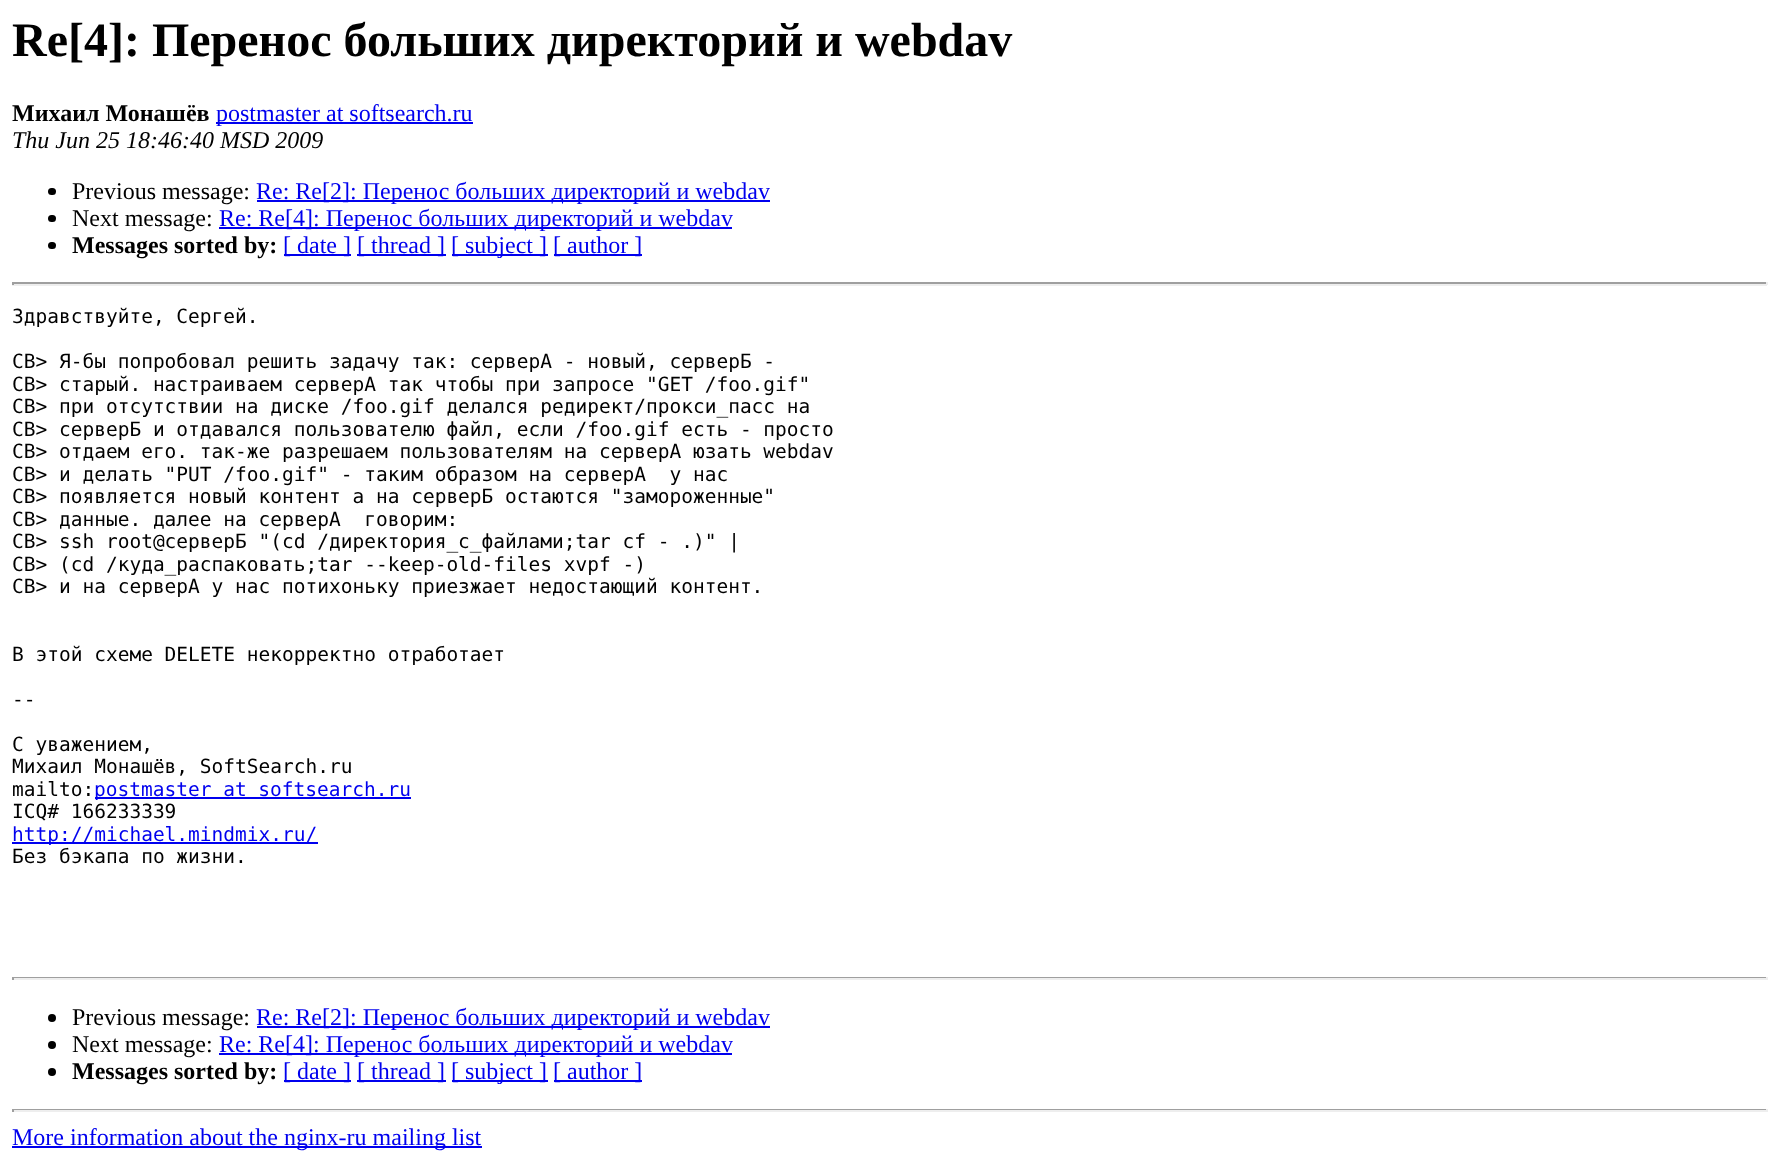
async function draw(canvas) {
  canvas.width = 1778;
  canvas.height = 1175;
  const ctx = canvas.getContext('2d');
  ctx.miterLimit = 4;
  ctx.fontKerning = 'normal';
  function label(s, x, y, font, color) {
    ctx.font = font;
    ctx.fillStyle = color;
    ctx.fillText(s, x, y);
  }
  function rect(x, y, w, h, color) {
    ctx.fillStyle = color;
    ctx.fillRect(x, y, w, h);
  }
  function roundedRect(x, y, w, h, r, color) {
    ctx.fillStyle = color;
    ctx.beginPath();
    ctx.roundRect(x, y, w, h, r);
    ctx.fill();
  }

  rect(0, 0, 1778, 1175, '#fff');
  label('Re[4]: Перенос больших директорий и webdav', 12, 56, 'bold 48px Liberation Serif', '#000');
  label('Михаил Монашёв', 12, 121, 'bold 24px Liberation Serif', '#000');
  rect(216, 122, 257, 2, '#00e');
  label('postmaster at softsearch.ru', 216, 121, '24px Liberation Serif', '#00e');
  label('Thu Jun 25 18:46:40 MSD 2009', 12, 148, 'italic 24px Liberation Serif', '#000');
  roundedRect(48, 188, 8, 7, 3.5, '#000');
  label('Previous message:', 72, 199, '24px Liberation Serif', '#000');
  rect(257, 200, 513, 2, '#00e');
  label('Re: Re[2]: Перенос больших директорий и webdav', 256, 199, '24px Liberation Serif', '#00e');
  roundedRect(48, 215, 8, 7, 3.5, '#000');
  label('Next message:', 72, 226, '24px Liberation Serif', '#000');
  rect(219, 227, 513, 2, '#00e');
  label('Re: Re[4]: Перенос больших директорий и webdav', 219, 226, '24px Liberation Serif', '#00e');
  roundedRect(48, 242, 8, 7, 3.5, '#000');
  label('Messages sorted by:', 72, 253, 'bold 24px Liberation Serif', '#000');
  rect(284, 254, 67, 2, '#00e');
  label('[ date ]', 283, 253, '24px Liberation Serif', '#00e');
  rect(357, 254, 89, 2, '#00e');
  label('[ thread ]', 357, 253, '24px Liberation Serif', '#00e');
  rect(452, 254, 96, 2, '#00e');
  label('[ subject ]', 451, 253, '24px Liberation Serif', '#00e');
  rect(554, 254, 88, 2, '#00e');
  label('[ author ]', 553, 253, '24px Liberation Serif', '#00e');
  rect(12, 282, 1755, 2, '#9f9f9f');
  rect(1766, 282, 2, 3, '#eee');
  rect(12, 284, 1755, 2, '#eee');
  rect(12, 282, 2, 3, '#9f9f9f');
  label('Здравствуйте, Сергей.', 12, 323, '19.5px DejaVu Sans Mono', '#000');
  label('СВ> Я-бы попробовал решить задачу так: серверА - новый, серверБ -', 12, 368, '19.5px DejaVu Sans Mono', '#000');
  label('СВ> старый. настраиваем серверА так чтобы при запросе "GET /foo.gif"', 12, 391, '19.5px DejaVu Sans Mono', '#000');
  label('СВ> при отсутствии на диске /foo.gif делался редирект/прокси_пасс на', 12, 413, '19.5px DejaVu Sans Mono', '#000');
  label('СВ> серверБ и отдавался пользователю файл, если /foo.gif есть - просто', 12, 436, '19.5px DejaVu Sans Mono', '#000');
  label('СВ> отдаем его. так-же разрешаем пользователям на серверА юзать webdav', 12, 458, '19.5px DejaVu Sans Mono', '#000');
  label('СВ> и делать "PUT /foo.gif" - таким образом на серверА  у нас', 12, 481, '19.5px DejaVu Sans Mono', '#000');
  label('СВ> появляется новый контент а на серверБ остаются "замороженные"', 12, 503, '19.5px DejaVu Sans Mono', '#000');
  label('СВ> данные. далее на серверА  говорим:', 12, 526, '19.5px DejaVu Sans Mono', '#000');
  label('СВ> ssh root@серверБ "(cd /директория_с_файлами;tar cf - .)" |', 12, 548, '19.5px DejaVu Sans Mono', '#000');
  label('СВ> (cd /куда_распаковать;tar --keep-old-files xvpf -)', 12, 571, '19.5px DejaVu Sans Mono', '#000');
  label('СВ> и на серверА у нас потихоньку приезжает недостающий контент.', 12, 593, '19.5px DejaVu Sans Mono', '#000');
  label('В этой схеме DELETE некорректно отработает', 12, 661, '19.5px DejaVu Sans Mono', '#000');
  label('--', 12, 706, '19.5px DejaVu Sans Mono', '#000');
  label('С уважением,', 12, 751, '19.5px DejaVu Sans Mono', '#000');
  label('Михаил Монашёв, SoftSearch.ru', 12, 773, '19.5px DejaVu Sans Mono', '#000');
  label('mailto:', 12, 796, '19.5px DejaVu Sans Mono', '#000');
  rect(95, 797, 316, 2, '#00e');
  label('postmaster at softsearch.ru', 94, 796, '19.5px DejaVu Sans Mono', '#00e');
  label('ICQ# 166233339', 12, 818, '19.5px DejaVu Sans Mono', '#000');
  rect(12, 842, 306, 2, '#00e');
  label('http://michael.mindmix.ru/', 12, 841, '19.5px DejaVu Sans Mono', '#00e');
  label('Без бэкапа по жизни.', 12, 863, '19.5px DejaVu Sans Mono', '#000');
  rect(12, 977, 1755, 1, '#9f9f9f');
  rect(1766, 977, 2, 3, '#eee');
  rect(12, 978, 1755, 2, '#eee');
  rect(12, 977, 2, 3, '#9f9f9f');
  ctx.fillStyle = '#000';
  ctx.beginPath();
  ctx.arc(52, 1018, 4, 0, 2 * Math.PI);
  ctx.fill();
  label('Previous message:', 72, 1025, '24px Liberation Serif', '#000');
  rect(257, 1026, 513, 2, '#00e');
  label('Re: Re[2]: Перенос больших директорий и webdav', 256, 1025, '24px Liberation Serif', '#00e');
  ctx.fillStyle = '#000';
  ctx.beginPath();
  ctx.arc(52, 1045, 4, 0, 2 * Math.PI);
  ctx.fill();
  label('Next message:', 72, 1052, '24px Liberation Serif', '#000');
  rect(219, 1053, 513, 2, '#00e');
  label('Re: Re[4]: Перенос больших директорий и webdav', 219, 1052, '24px Liberation Serif', '#00e');
  ctx.fillStyle = '#000';
  ctx.beginPath();
  ctx.arc(52, 1072, 4, 0, 2 * Math.PI);
  ctx.fill();
  label('Messages sorted by:', 72, 1079, 'bold 24px Liberation Serif', '#000');
  rect(284, 1080, 67, 2, '#00e');
  label('[ date ]', 283, 1079, '24px Liberation Serif', '#00e');
  rect(357, 1080, 89, 2, '#00e');
  label('[ thread ]', 357, 1079, '24px Liberation Serif', '#00e');
  rect(452, 1080, 96, 2, '#00e');
  label('[ subject ]', 451, 1079, '24px Liberation Serif', '#00e');
  rect(554, 1080, 88, 2, '#00e');
  label('[ author ]', 553, 1079, '24px Liberation Serif', '#00e');
  rect(12, 1109, 1755, 1, '#9f9f9f');
  rect(1766, 1109, 2, 3, '#eee');
  rect(12, 1110, 1755, 2, '#eee');
  rect(12, 1109, 2, 3, '#9f9f9f');
  rect(12, 1146, 470, 2, '#00e');
  label('More information about the nginx-ru mailing list', 12, 1145, '24px Liberation Serif', '#00e');
}

draw(document.querySelector('canvas'));
